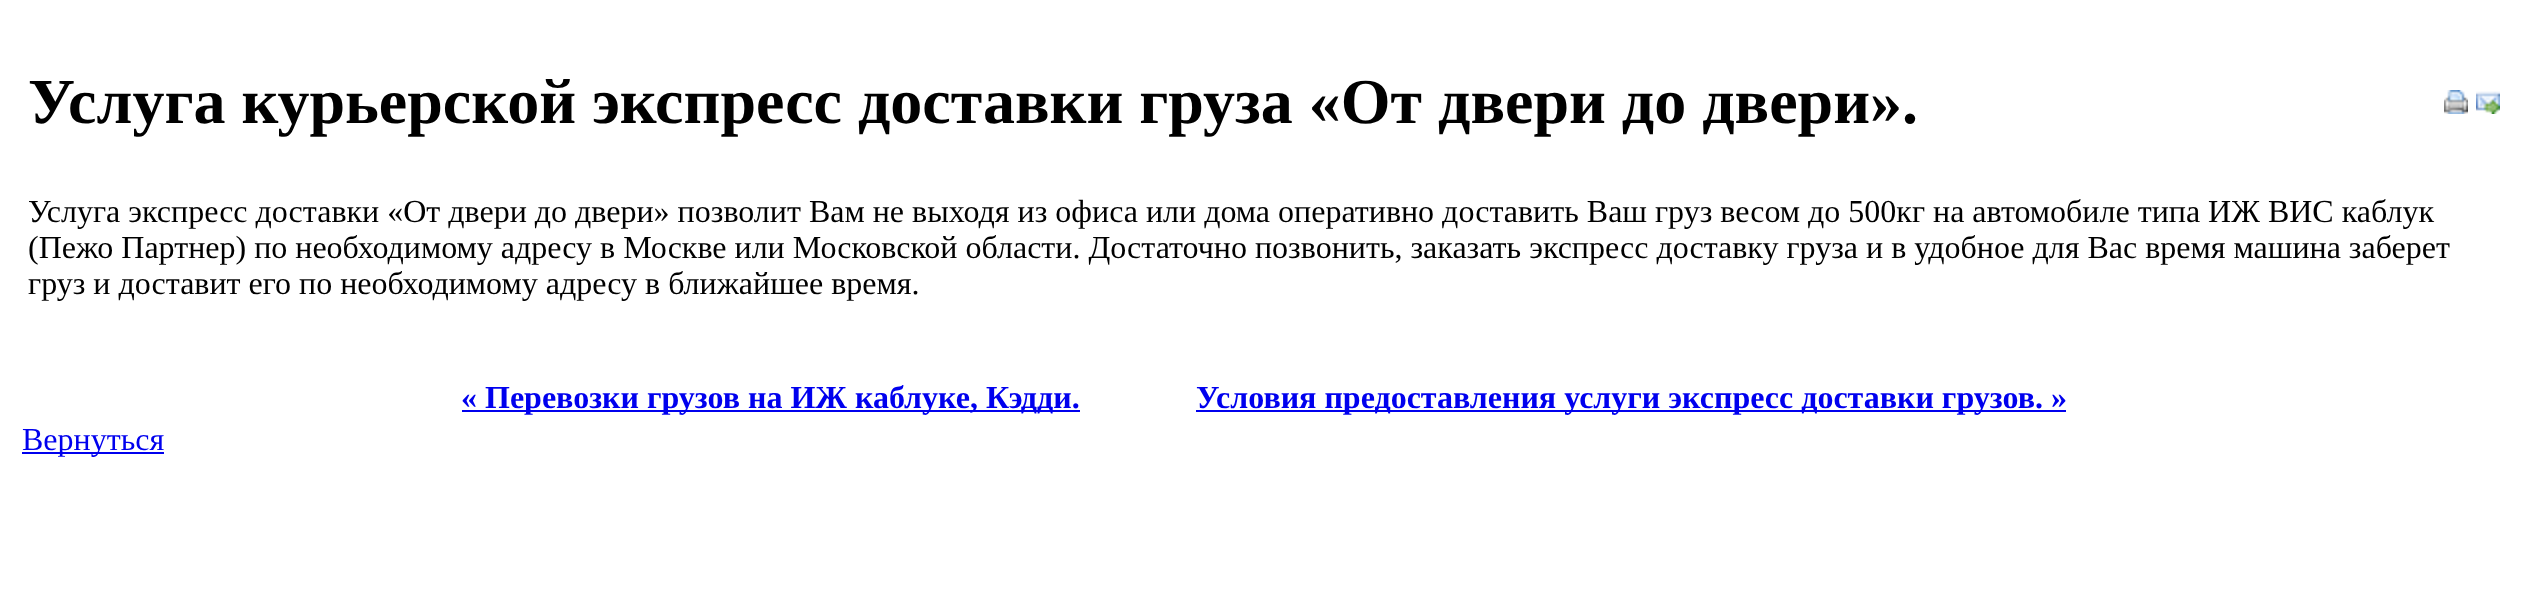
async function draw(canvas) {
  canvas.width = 2527;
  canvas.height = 614;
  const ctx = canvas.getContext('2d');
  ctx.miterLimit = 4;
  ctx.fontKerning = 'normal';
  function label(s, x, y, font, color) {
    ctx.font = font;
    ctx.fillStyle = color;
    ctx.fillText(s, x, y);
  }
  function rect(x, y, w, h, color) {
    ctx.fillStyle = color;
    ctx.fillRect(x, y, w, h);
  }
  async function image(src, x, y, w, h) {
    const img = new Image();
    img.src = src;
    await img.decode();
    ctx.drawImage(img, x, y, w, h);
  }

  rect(0, 0, 2527, 614, '#fff');
  label('Услуга курьерской экспресс доставки груза «От двери до двери».', 28, 123, 'bold 64px Liberation Serif', '#000');
  await image('assets/img1.png', 2444, 90, 24, 24);
  await image('assets/img2.png', 2476, 91, 24, 23);
  label('Услуга экспресс доставки «От двери до двери» позволит Вам не выходя из офиса или дома оперативно доставить Ваш груз весом до 500кг на автомобиле типа ИЖ ВИС каблук', 28, 222, '32px Liberation Serif', '#000');
  label('(Пежо Партнер) по необходимому адресу в Москве или Московской области. Достаточно позвонить, заказать экспресс доставку груза и в удобное для Вас время машина заберет', 28, 258, '32px Liberation Serif', '#000');
  label('груз и доставит его по необходимому адресу в ближайшее время.', 28, 294, '32px Liberation Serif', '#000');
  rect(462, 410, 618, 2, '#00e');
  label('« Перевозки грузов на ИЖ каблуке, Кэдди.', 461, 408, 'bold 32px Liberation Serif', '#00e');
  rect(1196, 410, 870, 2, '#00e');
  label('Условия предоставления услуги экспресс доставки грузов. »', 1196, 408, 'bold 32px Liberation Serif', '#00e');
  rect(22, 452, 142, 2, '#00e');
  label('Вернуться', 22, 450, '32px Liberation Serif', '#00e');
}

draw(document.querySelector('canvas'));
